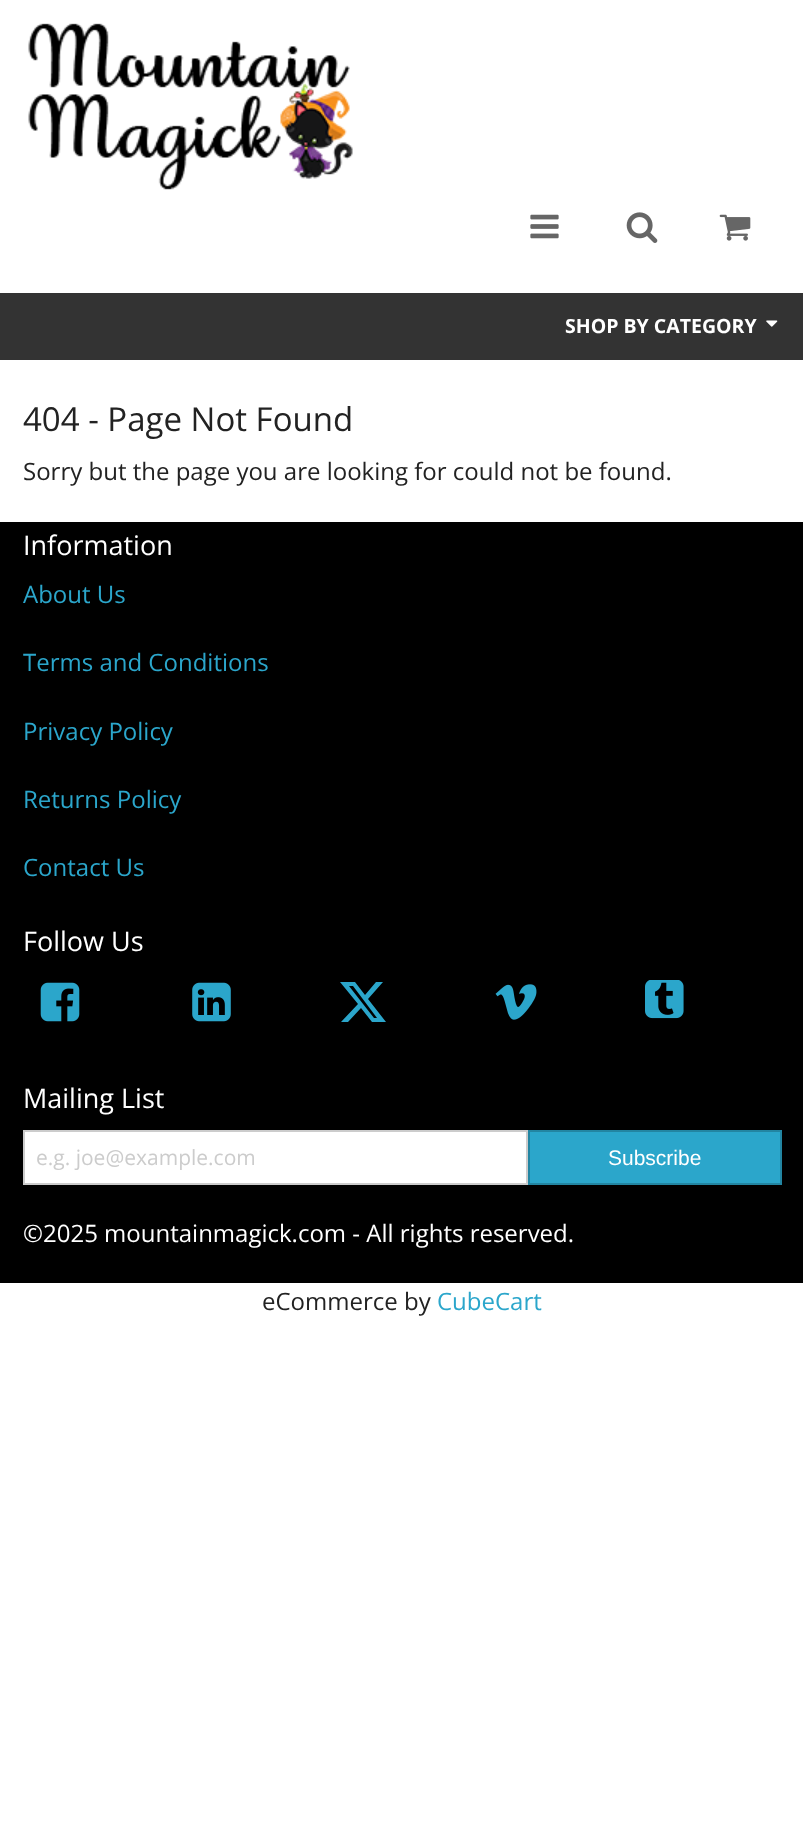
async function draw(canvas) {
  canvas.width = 803;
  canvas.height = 1821;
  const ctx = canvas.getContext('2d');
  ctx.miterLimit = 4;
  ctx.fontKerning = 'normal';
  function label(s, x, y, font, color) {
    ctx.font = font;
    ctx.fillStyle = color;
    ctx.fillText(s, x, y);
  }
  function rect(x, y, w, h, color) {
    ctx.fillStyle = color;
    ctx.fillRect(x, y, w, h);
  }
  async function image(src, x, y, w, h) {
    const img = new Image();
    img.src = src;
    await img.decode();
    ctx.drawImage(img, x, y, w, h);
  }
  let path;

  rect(0, 0, 803, 1821, '#fff');
  await image('assets/img1.png', 28, 23, 325, 167);
  await image('assets/img2.png', 530, 214, 29, 25);
  await image('assets/img3.png', 626, 212, 32, 31);
  await image('assets/img4.png', 719, 214, 32, 27);
  rect(0, 293, 803, 67, '#333');
  label('SHOP BY CATEGORY', 565, 333, 'bold 19.5px Open Sans', '#fff');
  await image('assets/img5.png', 766, 320, 12, 7);
  label('404 - Page Not Found', 23, 431, '33px Open Sans', '#222');
  label('Sorry but the page you are looking for could not be found.', 23, 480, '24px Open Sans', '#222');
  rect(0, 522, 803, 761, '#000');
  label('Information', 23, 555, '27px Open Sans', '#fff');
  label('About Us', 23, 603, '24px Open Sans', '#2ba6cb');
  label('Terms and Conditions', 23, 671, '24px Open Sans', '#2ba6cb');
  label('Privacy Policy', 23, 740, '24px Open Sans', '#2ba6cb');
  label('Returns Policy', 23, 808, '24px Open Sans', '#2ba6cb');
  label('Contact Us', 23, 876, '24px Open Sans', '#2ba6cb');
  label('Follow Us', 23, 951, '27px Open Sans', '#fff');
  await image('assets/img6.png', 40, 982, 40, 40);
  await image('assets/img7.png', 192, 982, 39, 40);
  ctx.fillStyle = '#2ba6cb';
  path = new Path2D('M376 982H383L368 999L386 1022H372L361 1008L348 1022H341L358 1004L340 982H355L365 995ZM374 1018H377L353 986H349Z');
  ctx.fill(path);
  await image('assets/img8.png', 495, 984, 42, 36);
  await image('assets/img9.png', 645, 980, 39, 39);
  label('Mailing List', 23, 1108, '27px Open Sans', '#fff');
  ctx.beginPath();
  ctx.rect(24, 1131, 503, 53);
  ctx.fill();
  ctx.strokeStyle = '#ccc';
  ctx.lineWidth = 2;
  ctx.stroke();
  label('e.g. joe@example.com', 36, 1165, '21px Open Sans', '#ccc');
  ctx.fillStyle = '#2ba6cb';
  ctx.beginPath();
  ctx.rect(529, 1131, 252, 53);
  ctx.fill();
  ctx.strokeStyle = '#2285a2';
  ctx.stroke();
  label('Subscribe', 608, 1165, '21px Liberation Sans', '#fff');
  label('©2025 mountainmagick.com - All rights reserved.', 23, 1242, '24px Open Sans', '#fff');
  label('eCommerce by', 262, 1310, '24px Open Sans', '#222');
  label('CubeCart', 437, 1310, '24px Open Sans', '#2ba6cb');
}

draw(document.querySelector('canvas'));
